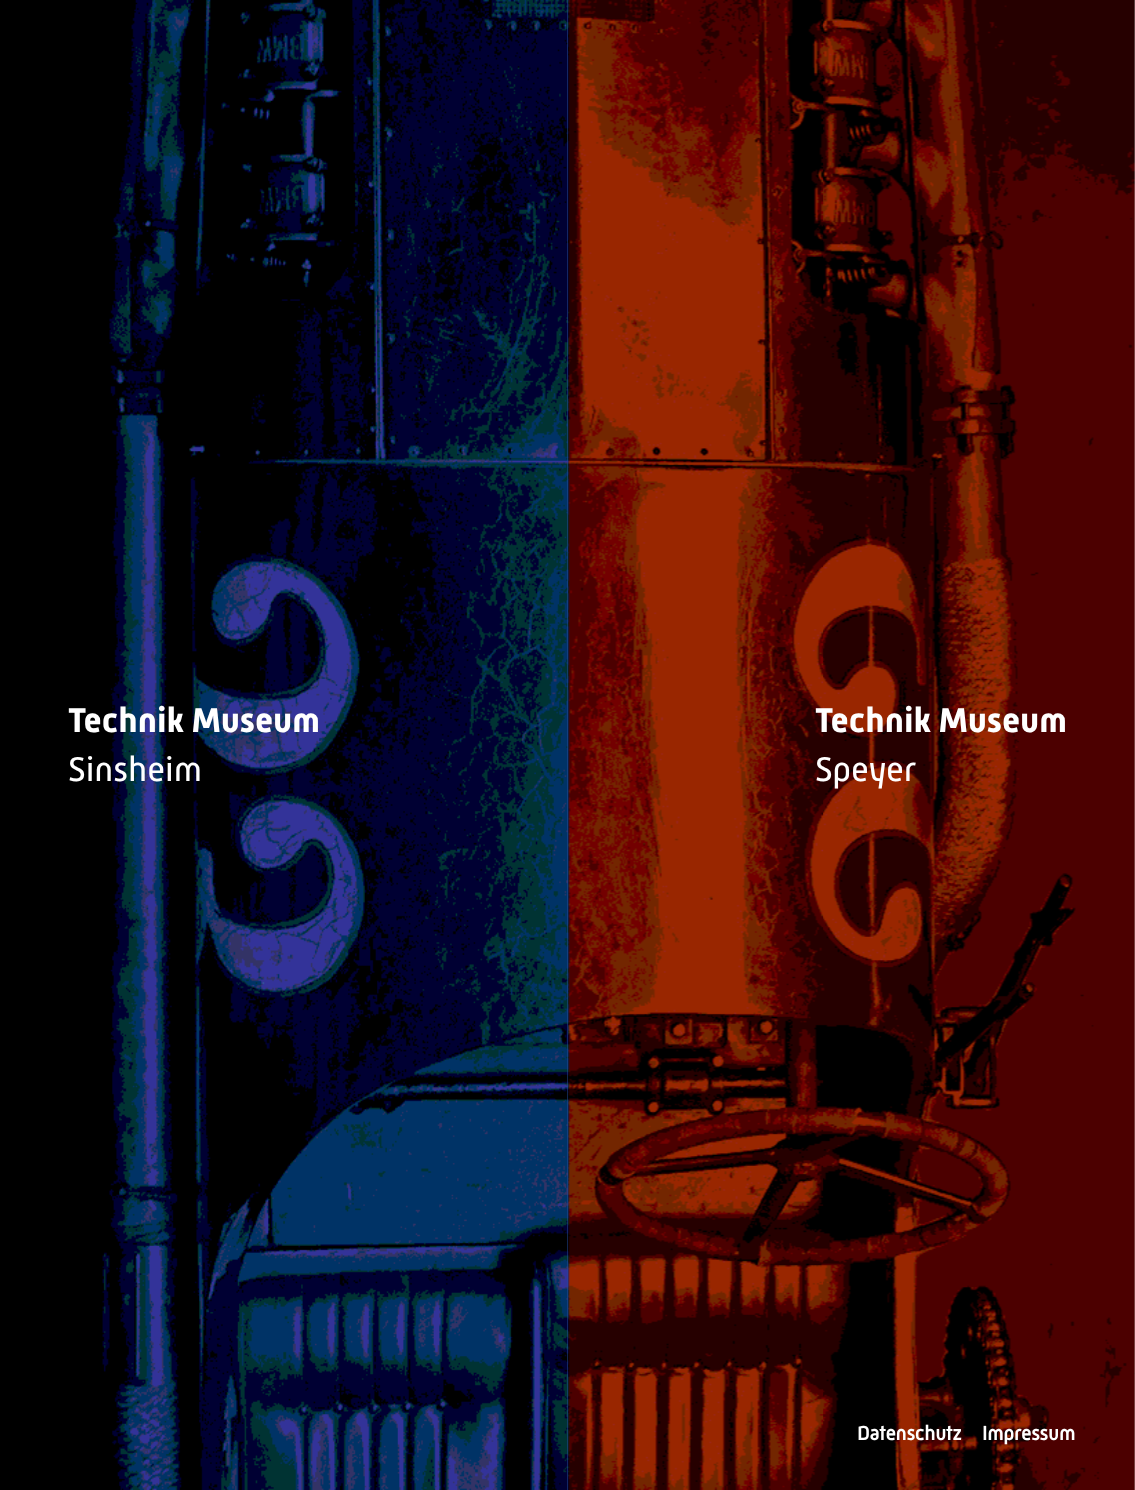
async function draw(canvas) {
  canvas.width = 1135;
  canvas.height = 1490;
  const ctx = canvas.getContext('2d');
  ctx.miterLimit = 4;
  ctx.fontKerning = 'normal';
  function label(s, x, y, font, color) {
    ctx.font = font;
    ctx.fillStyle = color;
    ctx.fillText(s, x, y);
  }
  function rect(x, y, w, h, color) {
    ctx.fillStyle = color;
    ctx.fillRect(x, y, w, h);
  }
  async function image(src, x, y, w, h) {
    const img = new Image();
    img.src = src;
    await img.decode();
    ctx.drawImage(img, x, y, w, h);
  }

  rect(0, 0, 1135, 1490, '#fff');
  rect(567, 0, 1, 1490, '#244a9a');
  await image('assets/img1.png', 0, 0, 568, 1490);
  label('Technik Museum', 68, 732, 'bold 35px "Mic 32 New"', '#fff');
  label('Sinsheim', 68, 781, '35px "Mic 32 New"', '#fff');
  await image('assets/img2.png', 568, 0, 567, 1490);
  label('Technik Museum', 815, 732, 'bold 35px "Mic 32 New"', '#fff');
  label('Speyer', 815, 781, '35px "Mic 32 New"', '#fff');
  label('Datenschutz', 857, 1440, 'bold 20px "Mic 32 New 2"', '#fff');
  label('Impressum', 982, 1440, 'bold 20px "Mic 32 New 2"', '#fff');
}

draw(document.querySelector('canvas'));
